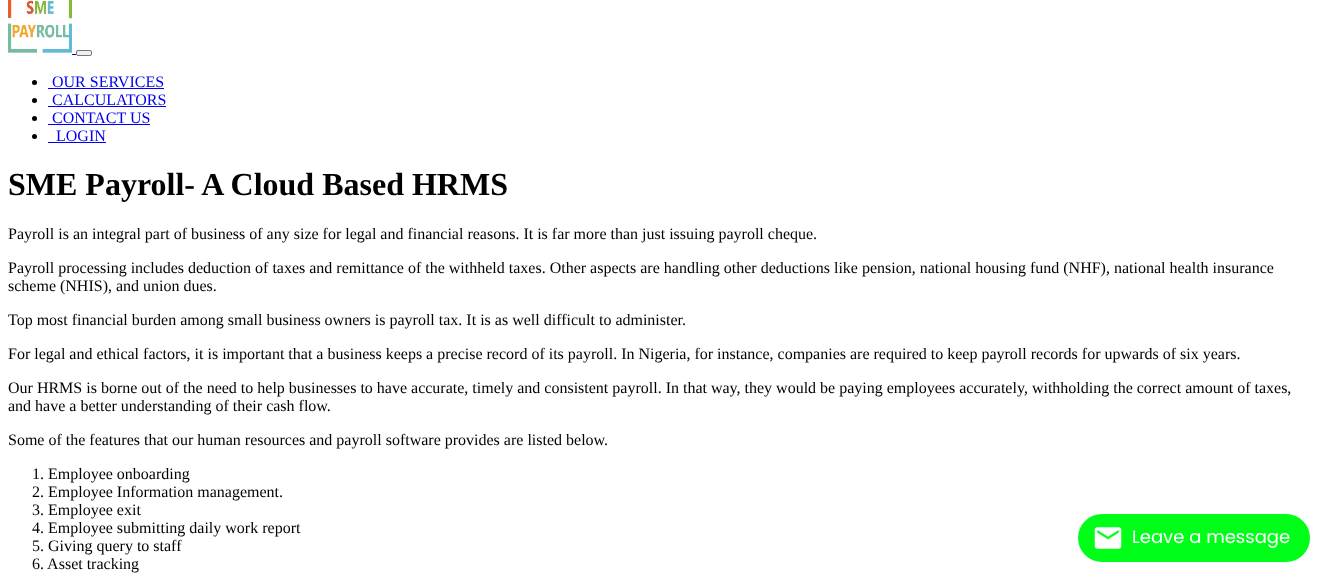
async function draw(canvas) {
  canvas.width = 1326;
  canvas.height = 574;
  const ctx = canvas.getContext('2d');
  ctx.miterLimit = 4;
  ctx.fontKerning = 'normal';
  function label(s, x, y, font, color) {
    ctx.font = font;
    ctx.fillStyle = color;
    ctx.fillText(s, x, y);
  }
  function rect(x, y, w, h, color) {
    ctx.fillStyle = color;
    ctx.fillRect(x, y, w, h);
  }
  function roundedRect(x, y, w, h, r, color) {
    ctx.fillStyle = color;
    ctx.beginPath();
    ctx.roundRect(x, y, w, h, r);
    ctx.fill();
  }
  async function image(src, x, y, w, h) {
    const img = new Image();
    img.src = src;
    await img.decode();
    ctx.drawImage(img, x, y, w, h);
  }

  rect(0, 0, 1326, 574, '#fff');
  await image('assets/img1.png', 8, 0, 64, 53);
  rect(72, 54, 4, 1, '#00e');
  ctx.fillStyle = '#efefef';
  ctx.beginPath();
  ctx.roundRect(76.5, 50.5, 15, 5, 1.5);
  ctx.fill();
  ctx.strokeStyle = '#767676';
  ctx.stroke();
  ctx.fillStyle = '#000';
  ctx.beginPath();
  ctx.arc(34.5, 82.5, 2.5, 0, 2 * Math.PI);
  ctx.fill();
  label('OUR SERVICES', 52, 87, '16px Liberation Serif', '#00e');
  rect(48, 88, 116, 1, '#00e');
  ctx.fillStyle = '#000';
  ctx.beginPath();
  ctx.arc(34.5, 100.5, 2.5, 0, 2 * Math.PI);
  ctx.fill();
  label('CALCULATORS', 52, 105, '16px Liberation Serif', '#00e');
  rect(48, 106, 118, 1, '#00e');
  ctx.fillStyle = '#000';
  ctx.beginPath();
  ctx.arc(34.5, 118.5, 2.5, 0, 2 * Math.PI);
  ctx.fill();
  label('CONTACT US', 52, 123, '16px Liberation Serif', '#00e');
  rect(48, 124, 102, 1, '#00e');
  ctx.fillStyle = '#000';
  ctx.beginPath();
  ctx.arc(34.5, 136.5, 2.5, 0, 2 * Math.PI);
  ctx.fill();
  label('LOGIN', 56, 141, '16px Liberation Serif', '#00e');
  rect(48, 142, 58, 1, '#00e');
  label('SME Payroll- A Cloud Based HRMS', 8, 195, 'bold 32px Liberation Serif', '#000');
  label('Payroll is an integral part of business of any size for legal and financial reasons. It is far more than just issuing payroll cheque.', 8, 239, '16px Liberation Serif', '#000');
  label('Payroll processing includes deduction of taxes and remittance of the withheld taxes. Other aspects are handling other deductions like pension, national housing fund (NHF), national health insurance', 8, 273, '16px Liberation Serif', '#000');
  label('scheme (NHIS), and union dues.', 8, 291, '16px Liberation Serif', '#000');
  label('Top most financial burden among small business owners is payroll tax. It is as well difficult to administer.', 8, 325, '16px Liberation Serif', '#000');
  label('For legal and ethical factors, it is important that a business keeps a precise record of its payroll. In Nigeria, for instance, companies are required to keep payroll records for upwards of six years.', 8, 359, '16px Liberation Serif', '#000');
  label('Our HRMS is borne out of the need to help businesses to have accurate, timely and consistent payroll. In that way, they would be paying employees accurately, withholding the correct amount of taxes,', 8, 393, '16px Liberation Serif', '#000');
  label('and have a better understanding of their cash flow.', 8, 411, '16px Liberation Serif', '#000');
  label('Some of the features that our human resources and payroll software provides are listed below.', 8, 445, '16px Liberation Serif', '#000');
  label('1. Employee onboarding', 32, 479, '16px Liberation Serif', '#000');
  label('2. Employee Information management.', 32, 497, '16px Liberation Serif', '#000');
  label('3. Employee exit', 32, 515, '16px Liberation Serif', '#000');
  label('4. Employee submitting daily work report', 32, 533, '16px Liberation Serif', '#000');
  label('5. Giving query to staff', 32, 551, '16px Liberation Serif', '#000');
  label('6. Asset tracking', 32, 569, '16px Liberation Serif', '#000');
  roundedRect(1078, 514, 232, 48, 24, '#00ff18');
  await image('assets/img2.png', 1094, 527, 28, 22);
  label('Leave a message', 1132, 543, '18px Poppins', '#fff');
}

draw(document.querySelector('canvas'));
